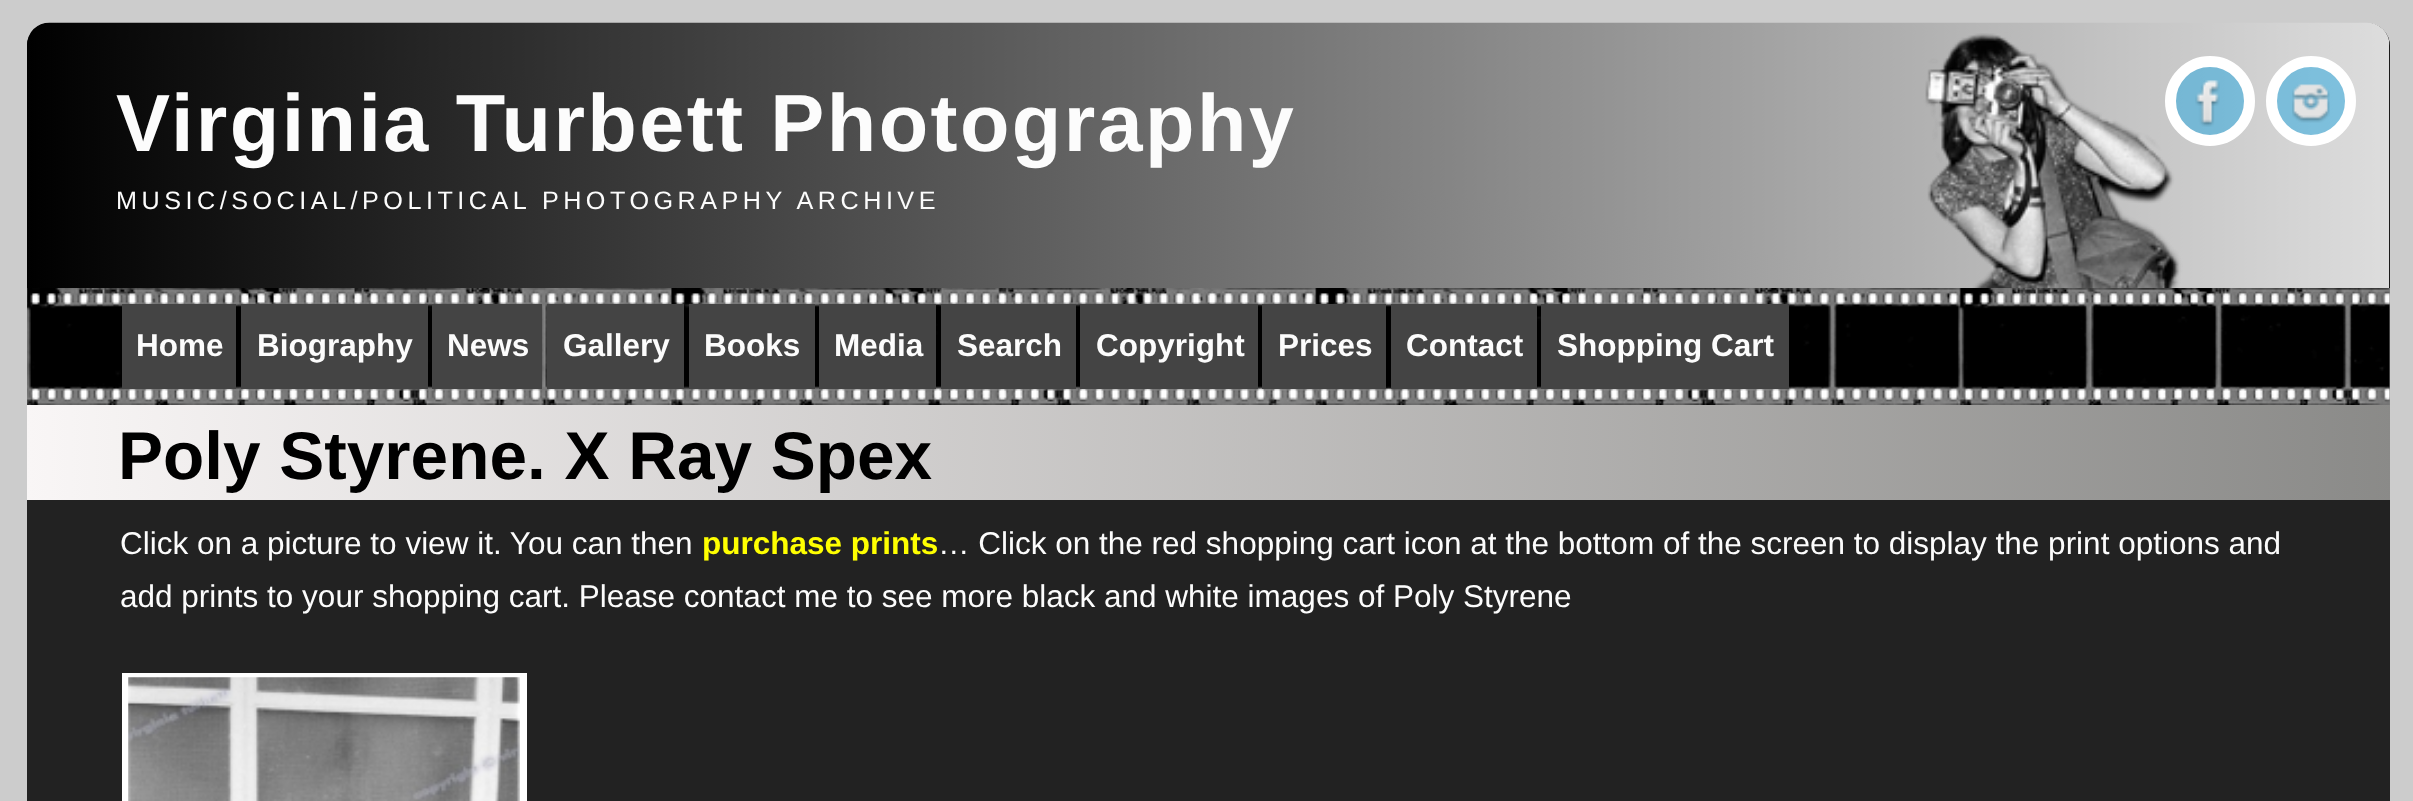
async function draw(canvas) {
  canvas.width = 2413;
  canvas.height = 801;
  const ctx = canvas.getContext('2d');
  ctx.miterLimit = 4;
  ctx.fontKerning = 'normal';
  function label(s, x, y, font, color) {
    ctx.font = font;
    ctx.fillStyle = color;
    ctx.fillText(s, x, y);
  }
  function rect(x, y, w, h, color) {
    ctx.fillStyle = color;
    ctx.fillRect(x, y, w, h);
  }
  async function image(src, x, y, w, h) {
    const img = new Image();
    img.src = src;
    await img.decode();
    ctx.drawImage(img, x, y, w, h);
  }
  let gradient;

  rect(0, 0, 2413, 801, '#ccc');
  ctx.fillStyle = '#000';
  ctx.beginPath();
  ctx.roundRect(27, 23, 2363, 382, [23, 23, 0, 0]);
  ctx.fill();
  await image('assets/img1.png', 27, 22, 2363, 266);
  ctx.letterSpacing = '2.4px';
  label('Virginia Turbett Photography', 116, 151, 'bold 81px Liberation Sans', '#fcfcfc');
  ctx.letterSpacing = '4.5px';
  label('MUSIC/SOCIAL/POLITICAL PHOTOGRAPHY ARCHIVE', 116, 209, '25.2px Liberation Sans', '#fcfcfc');
  ctx.fillStyle = '#06a0e36e';
  ctx.beginPath();
  ctx.arc(2210, 101, 39.5, 0, 2 * Math.PI);
  ctx.fill();
  ctx.strokeStyle = '#fff';
  ctx.lineWidth = 11;
  ctx.stroke();
  await image('assets/img2.png', 2195, 80, 25, 47);
  ctx.beginPath();
  ctx.arc(2311, 101, 39.5, 0, 2 * Math.PI);
  ctx.fill();
  ctx.stroke();
  await image('assets/img3.png', 2292, 84, 38, 39);
  rect(2389, 288, 1, 117, '#808080');
  await image('assets/img4.png', 27, 288, 2363, 117);
  rect(122, 304, 114, 85, '#444');
  ctx.letterSpacing = '0px';
  label('Home', 136, 356, 'bold 31.5px Liberation Sans', '#fcfcfc');
  rect(241, 304, 187, 85, '#444');
  label('Biography', 257, 356, 'bold 31.5px Liberation Sans', '#fcfcfc');
  rect(432, 304, 110, 85, '#444');
  label('News', 447, 356, 'bold 31.5px Liberation Sans', '#fcfcfc');
  rect(547, 304, 137, 85, '#444');
  label('Gallery', 563, 356, 'bold 31.5px Liberation Sans', '#fcfcfc');
  rect(689, 304, 126, 85, '#444');
  label('Books', 704, 356, 'bold 31.5px Liberation Sans', '#fcfcfc');
  rect(819, 304, 117, 85, '#444');
  label('Media', 834, 356, 'bold 31.5px Liberation Sans', '#fcfcfc');
  rect(941, 304, 135, 85, '#444');
  label('Search', 957, 356, 'bold 31.5px Liberation Sans', '#fcfcfc');
  rect(1080, 304, 178, 85, '#444');
  label('Copyright', 1096, 356, 'bold 31.5px Liberation Sans', '#fcfcfc');
  rect(1262, 304, 124, 85, '#444');
  label('Prices', 1278, 356, 'bold 31.5px Liberation Sans', '#fcfcfc');
  rect(1391, 304, 146, 85, '#444');
  label('Contact', 1406, 356, 'bold 31.5px Liberation Sans', '#fcfcfc');
  rect(1541, 304, 248, 85, '#444');
  label('Shopping Cart', 1557, 356, 'bold 31.5px Liberation Sans', '#fcfcfc');
  rect(27, 500, 2363, 301, '#222');
  gradient = ctx.createLinearGradient(27, 452, 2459, 452);
  gradient.addColorStop(0, '#f9f6f6');
  gradient.addColorStop(1, '#878785');
  ctx.fillStyle = gradient;
  ctx.fillRect(27, 405, 2363, 95);
  label('Poly Styrene. X Ray Spex', 118, 479, 'bold 67.5px Liberation Sans', '#000');
  label('Click on a picture to view it. You can then', 120, 554, '31.5px Liberation Sans', '#fcfcfc');
  label('purchase prints', 702, 554, 'bold 31.5px Liberation Sans', '#ff0');
  label('… Click on the red shopping cart icon at the bottom of the screen to display the print options and', 938, 554, '31.5px Liberation Sans', '#fcfcfc');
  label('add prints to your shopping cart. Please contact me to see more black and white images of Poly Styrene', 120, 607, '31.5px Liberation Sans', '#fcfcfc');
  rect(122, 673, 405, 128, '#fff');
  await image('assets/img5.png', 128, 677, 392, 124);
}

draw(document.querySelector('canvas'));
